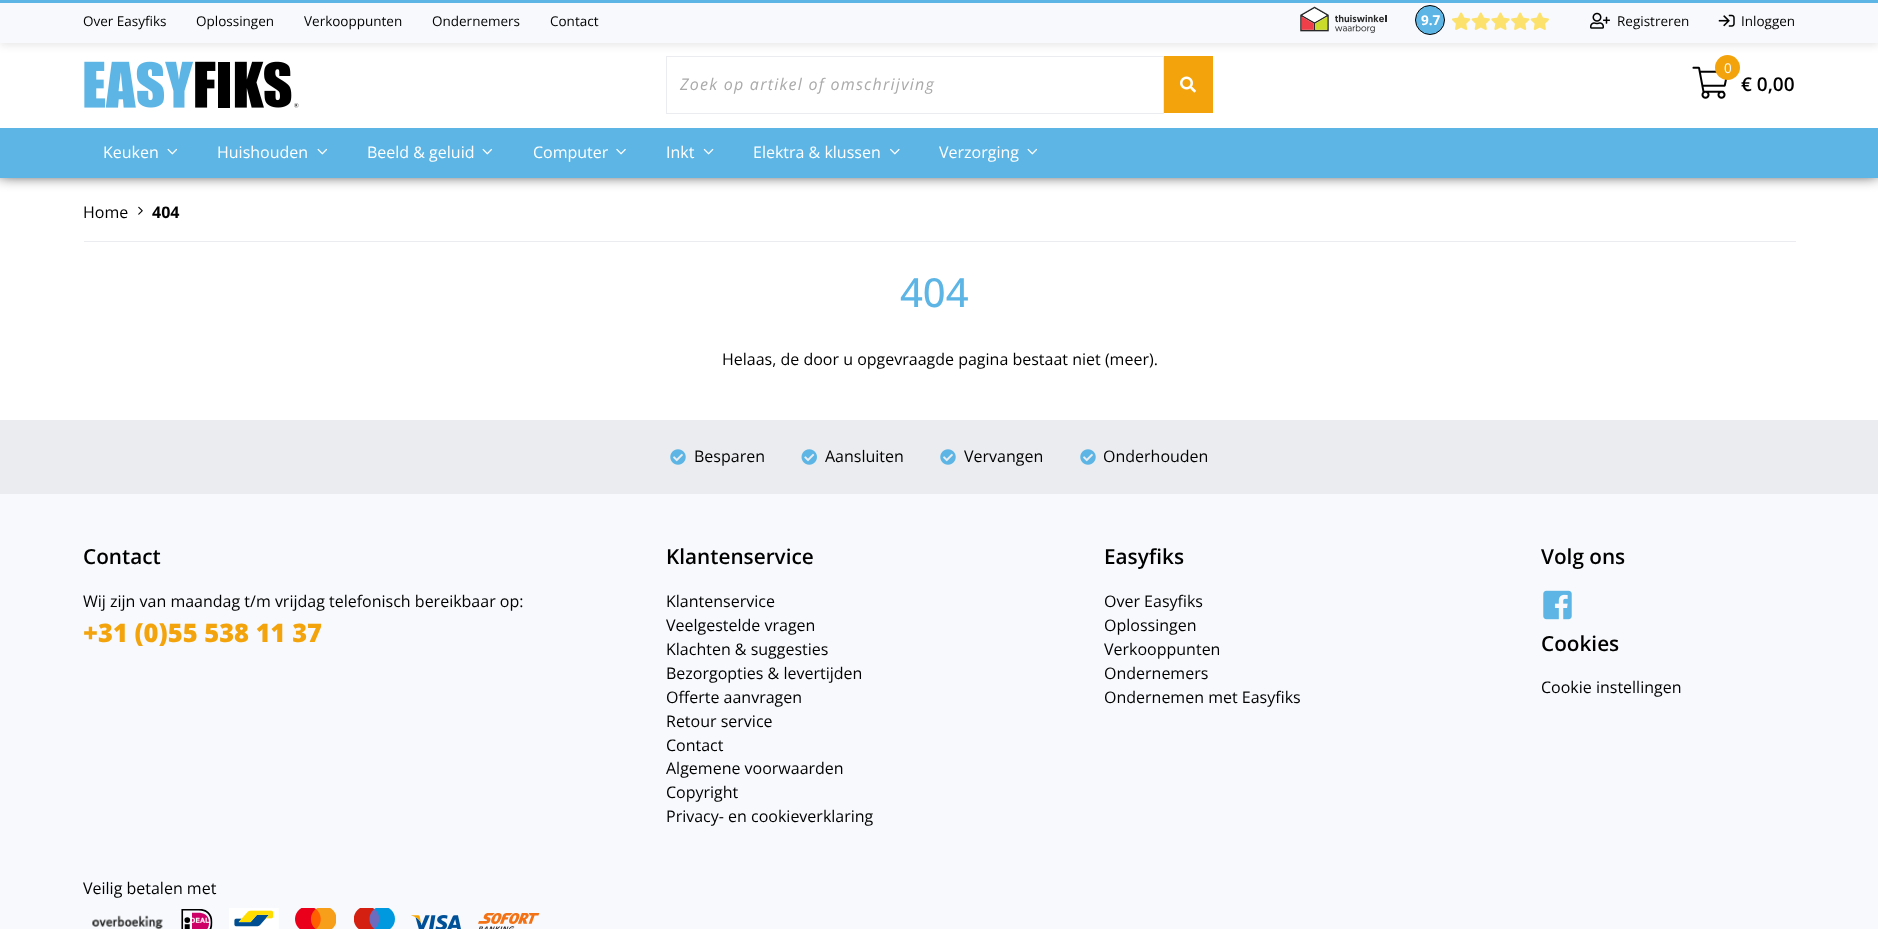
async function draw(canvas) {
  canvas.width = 1878;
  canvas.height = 929;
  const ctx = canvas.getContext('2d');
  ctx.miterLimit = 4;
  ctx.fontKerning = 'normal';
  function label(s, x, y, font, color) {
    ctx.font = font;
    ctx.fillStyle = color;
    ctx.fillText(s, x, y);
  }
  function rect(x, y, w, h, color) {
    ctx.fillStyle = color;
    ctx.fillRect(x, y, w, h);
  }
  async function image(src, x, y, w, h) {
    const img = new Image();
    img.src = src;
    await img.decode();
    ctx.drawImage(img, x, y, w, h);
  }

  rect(0, 0, 1878, 929, '#fff');
  ctx.fillStyle = '#000';
  ctx.filter = 'blur(7.5px)';
  ctx.beginPath();
  ctx.rect(-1, -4, 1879, 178);
  ctx.fill();
  ctx.filter = 'none';
  rect(0, 43, 1878, 85, '#fff');
  ctx.fillStyle = '#0000001a';
  ctx.filter = 'blur(4px)';
  ctx.beginPath();
  ctx.rect(0, 3, 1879, 42);
  ctx.fill();
  ctx.filter = 'none';
  rect(0, 3, 1878, 40, '#f7f9fc');
  rect(0, 0, 1878, 3, '#5cb5e5');
  label('Over Easyfiks', 83, 26, '13.5px Open Sans', '#000');
  label('Oplossingen', 196, 26, '13.5px Open Sans', '#000');
  label('Verkooppunten', 304, 26, '13.5px Open Sans', '#000');
  label('Ondernemers', 432, 26, '13.5px Open Sans', '#000');
  label('Contact', 550, 26, '13.5px Open Sans', '#000');
  await image('assets/img1.png', 1300, 6, 87, 27);
  ctx.fillStyle = '#5cb5e5';
  ctx.beginPath();
  ctx.arc(1430, 20, 14.5, 0, 2 * Math.PI);
  ctx.fill();
  ctx.strokeStyle = '#000';
  ctx.stroke();
  label('9.7', 1421, 25, 'bold 13.5px Open Sans', '#fff');
  await image('assets/img2.png', 1452, 12, 97, 18);
  await image('assets/img3.png', 1590, 12, 20, 17);
  label('Registreren', 1617, 26, '13.5px Open Sans', '#000');
  await image('assets/img4.png', 1718, 14, 17, 13);
  label('Inloggen', 1741, 26, '13.5px Open Sans', '#000');
  await image('assets/img5.png', 84, 61, 215, 47);
  ctx.strokeStyle = '#eaecef';
  ctx.strokeRect(666.5, 56.5, 497, 57);
  ctx.letterSpacing = '1.25px';
  label('Zoek op artikel of omschrijving', 680, 90, 'italic 16px Open Sans', '#aaa');
  rect(1164, 56, 49, 57, '#f3a40c');
  await image('assets/img6.png', 1180, 76, 16, 17);
  await image('assets/img7.png', 1692, 66, 36, 33);
  ctx.beginPath();
  ctx.arc(1727.5, 67.5, 12.5, 0, 2 * Math.PI);
  ctx.fill();
  ctx.letterSpacing = '0px';
  label('0', 1724, 73, '13.5px Open Sans', '#fff');
  label('€ 0,00', 1741, 91, '600 19px Open Sans', '#000');
  rect(0, 128, 1878, 50, '#5cb5e5');
  label('Keuken', 103, 158, '16px Open Sans', '#fff');
  await image('assets/img8.png', 167, 148, 11, 7);
  label('Huishouden', 217, 158, '16px Open Sans', '#fff');
  await image('assets/img8.png', 317, 148, 11, 7);
  label('Beeld & geluid', 367, 158, '16px Open Sans', '#fff');
  await image('assets/img8.png', 482, 148, 11, 7);
  label('Computer', 533, 158, '16px Open Sans', '#fff');
  await image('assets/img9.png', 616, 148, 10, 7);
  label('Inkt', 666, 158, '16px Open Sans', '#fff');
  await image('assets/img10.png', 703, 148, 11, 7);
  label('Elektra & klussen', 753, 158, '16px Open Sans', '#fff');
  await image('assets/img11.png', 890, 148, 10, 7);
  label('Verzorging', 939, 158, '16px Open Sans', '#fff');
  await image('assets/img8.png', 1027, 148, 11, 7);
  rect(84, 241, 1712, 1, '#eaecef');
  label('Home', 83, 218, '16px Open Sans', '#000');
  await image('assets/img12.png', 138, 206, 5, 9);
  label('404', 152, 218, 'bold 16px Open Sans', '#000');
  label('404', 900, 307, '500 40px Open Sans', '#5cb5e5');
  label('Helaas, de door u opgevraagde pagina bestaat niet (meer).', 722, 365, '16px Open Sans', '#000');
  rect(0, 494, 1878, 435, '#f7f9fc');
  rect(0, 420, 1878, 74, '#eaecef');
  await image('assets/img13.png', 670, 449, 16, 16);
  label('Besparen', 694, 462, '16px Open Sans', '#000');
  await image('assets/img14.png', 801, 449, 16, 16);
  label('Aansluiten', 825, 462, '16px Open Sans', '#000');
  await image('assets/img13.png', 940, 449, 16, 16);
  label('Vervangen', 964, 462, '16px Open Sans', '#000');
  await image('assets/img13.png', 1080, 449, 16, 16);
  label('Onderhouden', 1103, 462, '16px Open Sans', '#000');
  label('Contact', 83, 564, '600 20.75px Open Sans', '#000');
  label('Wij zijn van maandag t/m vrijdag telefonisch bereikbaar op:', 83, 607, '16px Open Sans', '#000');
  label('+31 (0)55 538 11 37', 83, 642, '800 25.5px Open Sans', '#f3a40c');
  label('Klantenservice', 666, 564, '600 20.75px Open Sans', '#000');
  label('Klantenservice', 666, 607, '16px Open Sans', '#000');
  label('Veelgestelde vragen', 666, 631, '16px Open Sans', '#000');
  label('Klachten & suggesties', 666, 655, '16px Open Sans', '#000');
  label('Bezorgopties & levertijden', 666, 679, '16px Open Sans', '#000');
  label('Offerte aanvragen', 666, 703, '16px Open Sans', '#000');
  label('Retour service', 666, 727, '16px Open Sans', '#000');
  label('Contact', 666, 751, '16px Open Sans', '#000');
  label('Algemene voorwaarden', 666, 774, '16px Open Sans', '#000');
  label('Copyright', 666, 798, '16px Open Sans', '#000');
  label('Privacy- en cookieverklaring', 666, 822, '16px Open Sans', '#000');
  label('Easyfiks', 1104, 564, '600 20.75px Open Sans', '#000');
  label('Over Easyfiks', 1104, 607, '16px Open Sans', '#000');
  label('Oplossingen', 1104, 631, '16px Open Sans', '#000');
  label('Verkooppunten', 1104, 655, '16px Open Sans', '#000');
  label('Ondernemers', 1104, 679, '16px Open Sans', '#000');
  label('Ondernemen met Easyfiks', 1104, 703, '16px Open Sans', '#000');
  label('Volg ons', 1541, 564, '600 20.75px Open Sans', '#000');
  await image('assets/img15.png', 1543, 590, 29, 30);
  label('Cookies', 1541, 651, '600 20.75px Open Sans', '#000');
  label('Cookie instellingen', 1541, 693, '16px Open Sans', '#000');
  label('Veilig betalen met', 83, 894, '16px Open Sans', '#000');
  await image('assets/img16.png', 92, 915, 71, 14);
  await image('assets/img17.png', 181, 909, 32, 20);
  await image('assets/img18.png', 229, 908, 50, 21);
  await image('assets/img19.png', 295, 908, 41, 21);
  await image('assets/img20.png', 354, 908, 41, 21);
  await image('assets/img21.png', 411, 915, 50, 14);
  await image('assets/img22.png', 478, 913, 62, 16);
}

draw(document.querySelector('canvas'));
